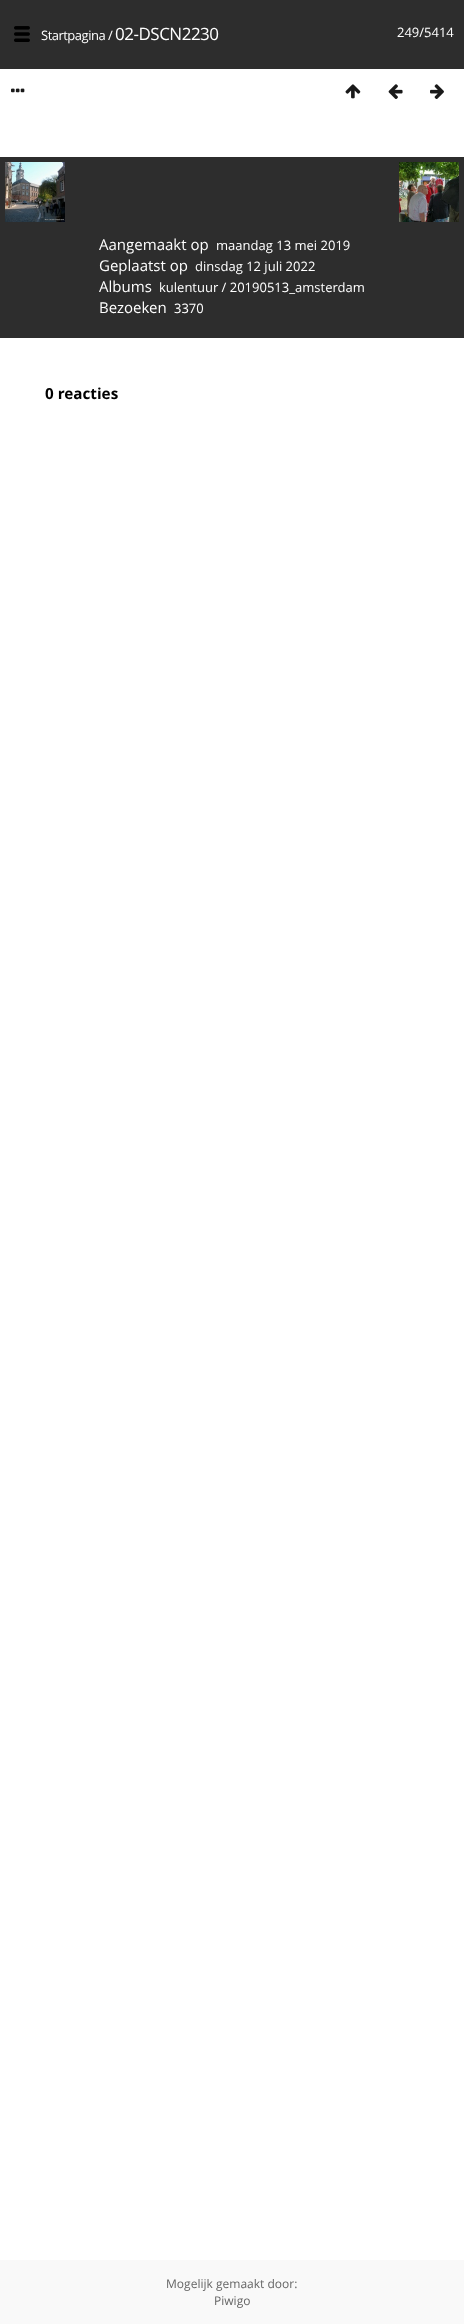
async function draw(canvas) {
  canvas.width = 464;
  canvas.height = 2324;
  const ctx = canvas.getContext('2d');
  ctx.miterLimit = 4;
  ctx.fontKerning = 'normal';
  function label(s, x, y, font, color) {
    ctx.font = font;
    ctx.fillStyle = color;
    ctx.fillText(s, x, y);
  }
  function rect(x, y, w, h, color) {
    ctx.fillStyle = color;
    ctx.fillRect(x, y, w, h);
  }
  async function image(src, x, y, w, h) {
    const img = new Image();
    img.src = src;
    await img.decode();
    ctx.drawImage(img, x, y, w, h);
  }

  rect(0, 0, 464, 2324, '#fff');
  rect(0, 0, 464, 69, '#2d2d2d');
  await image('assets/img1.png', 14, 26, 16, 16);
  ctx.letterSpacing = '-0.5px';
  label('Startpagina /', 41, 40, '13px Open Sans', '#fff');
  label('02-DSCN2230', 115, 40, '17px Open Sans', '#fff');
  ctx.letterSpacing = '0px';
  label('249/5414', 397, 37, '13px Open Sans', '#fff');
  await image('assets/img2.png', 11, 88, 14, 5);
  await image('assets/img3.png', 345, 84, 16, 15);
  await image('assets/img4.png', 388, 84, 15, 15);
  await image('assets/img5.png', 430, 84, 14, 15);
  rect(0, 157, 464, 181, '#2d2d2d');
  await image('assets/img6.png', 5, 162, 60, 60);
  await image('assets/img7.png', 399, 162, 60, 60);
  label('Aangemaakt op', 99, 250, '15px Open Sans', '#fff');
  label('maandag 13 mei 2019', 216, 250, '13px Open Sans', '#fff');
  label('Geplaatst op', 99, 271, '15px Open Sans', '#fff');
  label('dinsdag 12 juli 2022', 195, 271, '13px Open Sans', '#fff');
  label('Albums', 99, 292, '15px Open Sans', '#fff');
  label('kulentuur / 20190513_amsterdam', 159, 292, '13px Open Sans', '#fff');
  label('Bezoeken', 99, 313, '15px Open Sans', '#fff');
  label('3370', 174, 313, '13px Open Sans', '#fff');
  label('0 reacties', 45, 399, 'bold 15.25px Open Sans', '#000');
  rect(0, 2260, 464, 64, '#f9f9f9');
  label('Mogelijk gemaakt door:', 166, 2288, '12px Open Sans', '#666');
  label('Piwigo', 214, 2305, '12px Open Sans', '#666');
}

draw(document.querySelector('canvas'));
